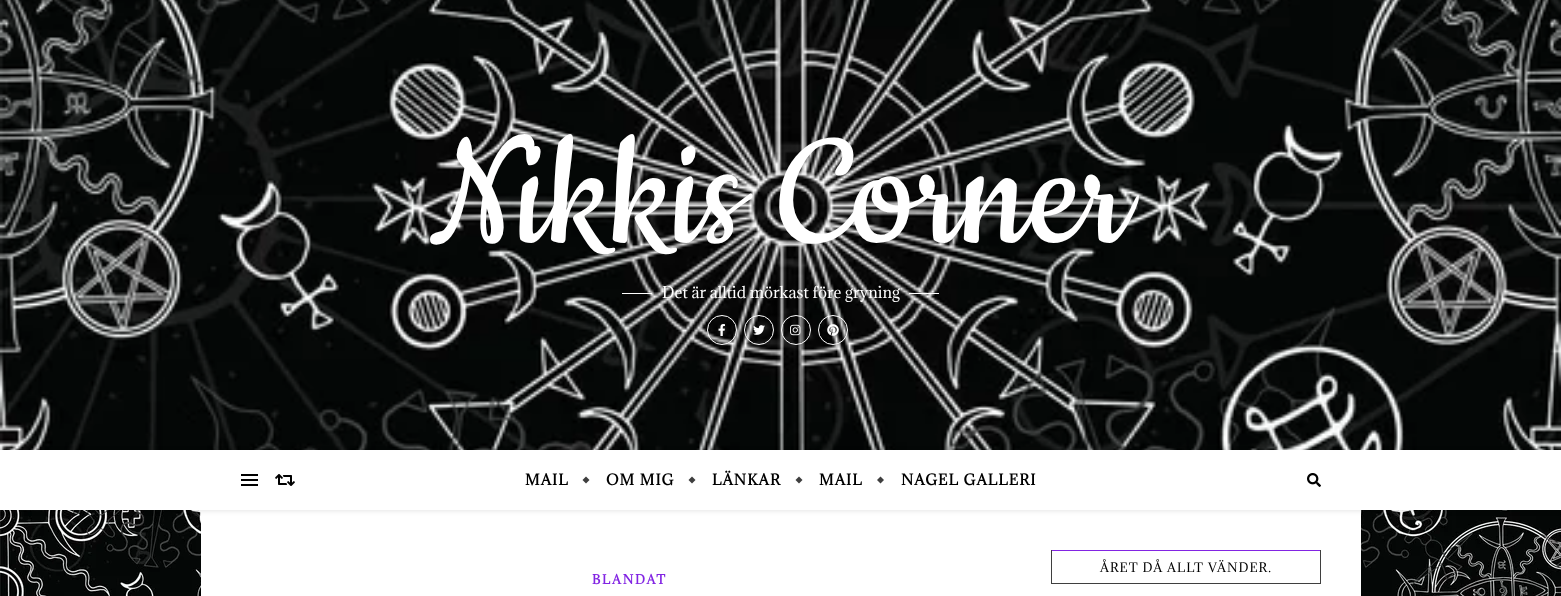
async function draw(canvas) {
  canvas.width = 1561;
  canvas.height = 596;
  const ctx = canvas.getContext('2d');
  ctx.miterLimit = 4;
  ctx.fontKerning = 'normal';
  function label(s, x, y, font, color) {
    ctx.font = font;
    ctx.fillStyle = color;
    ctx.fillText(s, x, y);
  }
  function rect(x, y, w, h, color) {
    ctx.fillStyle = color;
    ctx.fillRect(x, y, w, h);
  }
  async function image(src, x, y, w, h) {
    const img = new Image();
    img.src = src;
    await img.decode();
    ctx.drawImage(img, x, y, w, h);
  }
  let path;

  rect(0, 0, 1561, 596, '#fff');
  await image('assets/img1.png', 0, 510, 1561, 86);
  await image('assets/img2.png', 0, 0, 1561, 450);
  label('Nikkis Corner', 430, 242, '180px Cookie', '#fff');
  rect(622, 293, 30, 1, '#fff');
  label('Det är alltid mörkast före gryning', 662, 298, '15px Adamina', '#fff');
  rect(909, 293, 30, 1, '#fff');
  ctx.beginPath();
  ctx.arc(722, 330, 14.5, 0, 2 * Math.PI);
  ctx.strokeStyle = '#fff';
  ctx.stroke();
  await image('assets/img3.png', 718, 324, 7, 12);
  ctx.beginPath();
  ctx.arc(759, 330, 14.5, 0, 2 * Math.PI);
  ctx.stroke();
  await image('assets/img4.png', 753, 325, 12, 10);
  ctx.beginPath();
  ctx.arc(796, 330, 14.5, 0, 2 * Math.PI);
  ctx.stroke();
  await image('assets/img5.png', 790, 324, 11, 12);
  ctx.beginPath();
  ctx.arc(833, 330, 14.5, 0, 2 * Math.PI);
  ctx.stroke();
  await image('assets/img6.png', 827, 324, 12, 12);
  rect(201, 510, 1160, 86, '#fff');
  ctx.fillStyle = '#0000001a';
  ctx.filter = 'blur(2.5px)';
  ctx.beginPath();
  ctx.rect(0, 451, 1561, 60);
  ctx.fill();
  ctx.filter = 'none';
  rect(0, 450, 1561, 60, '#fff');
  rect(241, 474, 17, 2, '#000');
  rect(241, 479, 17, 2, '#000');
  rect(241, 484, 17, 2, '#000');
  await image('assets/img7.png', 275, 474, 20, 12);
  ctx.letterSpacing = '1px';
  label('MAIL', 525, 485, 'bold 14px Adamina', '#000');
  ctx.fillStyle = '#3f3f3f';
  path = new Path2D('M582.5 480L586 476.5L589.5 480L586 483.5Z');
  ctx.fill(path);
  label('OM MIG', 606, 485, 'bold 14px Adamina', '#000');
  ctx.fillStyle = '#3f3f3f';
  path = new Path2D('M688.5 480L692 476.5L695.5 480L692 483.5Z');
  ctx.fill(path);
  label('LÄNKAR', 712, 485, 'bold 14px Adamina', '#000');
  ctx.fillStyle = '#3f3f3f';
  path = new Path2D('M795.5 480L799 476.5L802.5 480L799 483.5Z');
  ctx.fill(path);
  label('MAIL', 819, 485, 'bold 14px Adamina', '#000');
  ctx.fillStyle = '#3f3f3f';
  path = new Path2D('M877 480L880.5 476.5L884 480L880.5 483.5Z');
  ctx.fill(path);
  label('NAGEL GALLERI', 901, 485, 'bold 14px Adamina', '#000');
  await image('assets/img8.png', 1307, 473, 14, 14);
  rect(1051, 550, 270, 1, '#8224e3');
  rect(1320, 550, 1, 34, '#3f3f3f');
  rect(1051, 583, 270, 1, '#3f3f3f');
  rect(1051, 550, 1, 34, '#3f3f3f');
  label('ÅRET DÅ ALLT VÄNDER.', 1100, 572, '12px Adamina', '#000');
  ctx.letterSpacing = '1.75px';
  label('BLANDAT', 592, 584, 'bold 12px Adamina', '#8224e3');
}

draw(document.querySelector('canvas'));
